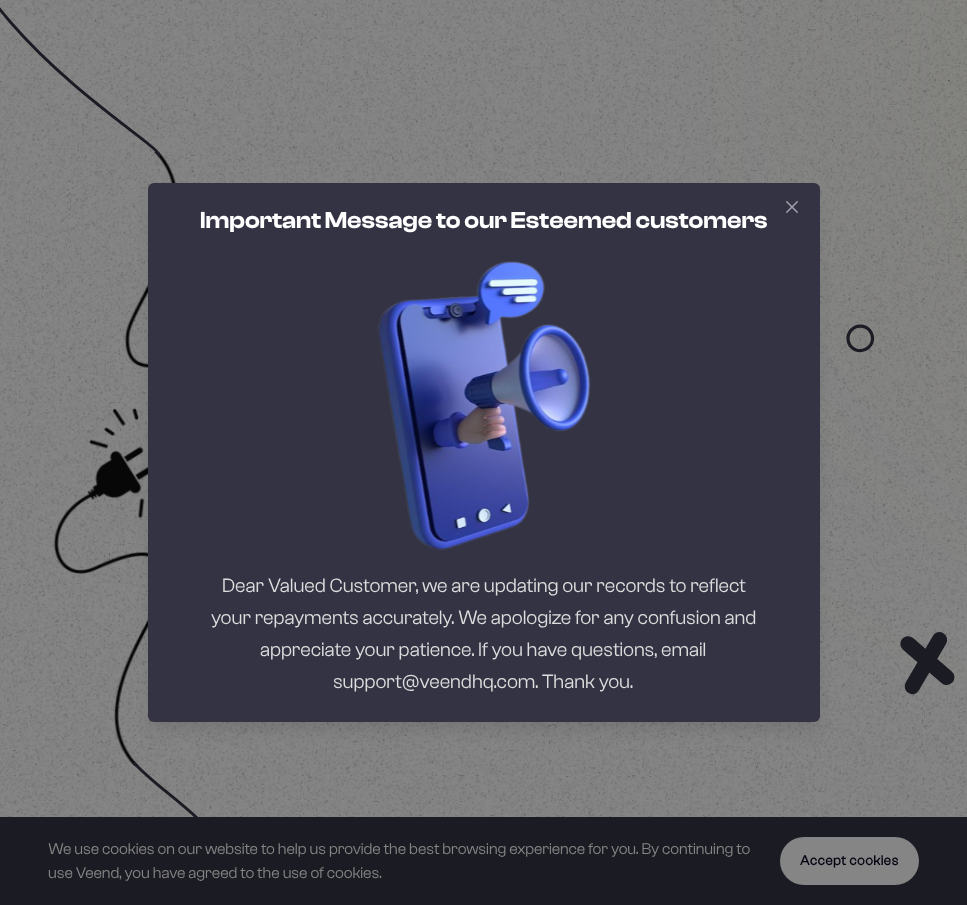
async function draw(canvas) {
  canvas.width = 967;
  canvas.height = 905;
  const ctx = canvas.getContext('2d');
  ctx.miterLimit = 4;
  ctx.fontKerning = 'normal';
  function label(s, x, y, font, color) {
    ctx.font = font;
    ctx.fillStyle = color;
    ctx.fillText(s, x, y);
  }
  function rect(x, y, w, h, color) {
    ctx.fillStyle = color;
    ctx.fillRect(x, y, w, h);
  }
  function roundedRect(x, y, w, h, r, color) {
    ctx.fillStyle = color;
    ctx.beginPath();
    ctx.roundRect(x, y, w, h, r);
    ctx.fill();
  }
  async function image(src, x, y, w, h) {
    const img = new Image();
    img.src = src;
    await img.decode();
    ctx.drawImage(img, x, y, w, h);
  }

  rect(0, 0, 967, 905, '#858585');
  await image('assets/img3.png', 0, 0, 967, 817);
  ctx.fillStyle = '#0000001a';
  ctx.filter = 'blur(7.5px)';
  ctx.beginPath();
  ctx.roundRect(151, 196, 666, 533, 3);
  ctx.fill();
  ctx.filter = 'none';
  roundedRect(148, 183, 672, 539, 6, '#334');
  await image('assets/img1.png', 786, 201, 12, 12);
  label('Important Message to our Esteemed customers', 200, 228, '600 24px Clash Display', '#fff');
  await image('assets/img2.png', 378, 261, 213, 289);
  label('Dear Valued Customer, we are updating our records to reflect', 222, 592, '20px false', '#ddd');
  label('your repayments accurately. We apologize for any confusion and', 211, 624, '20px false', '#ddd');
  label('appreciate your patience. If you have questions, email', 260, 656, '20px false', '#ddd');
  label('support@veendhq.com. Thank you.', 333, 688, '20px false', '#ddd');
  rect(0, 817, 967, 88, '#1b1b23');
  label('We use cookies on our website to help us provide the best browsing experience for you. By continuing to', 48, 854, '16px false', '#858585');
  label('use Veend, you have agreed to the use of cookies.', 48, 878, '16px false', '#858585');
  roundedRect(780, 837, 139, 48, 24, '#858585');
  ctx.letterSpacing = '0.5px';
  label('Accept cookies', 800, 865, 'bold 14px false', '#020211');
}

draw(document.querySelector('canvas'));
